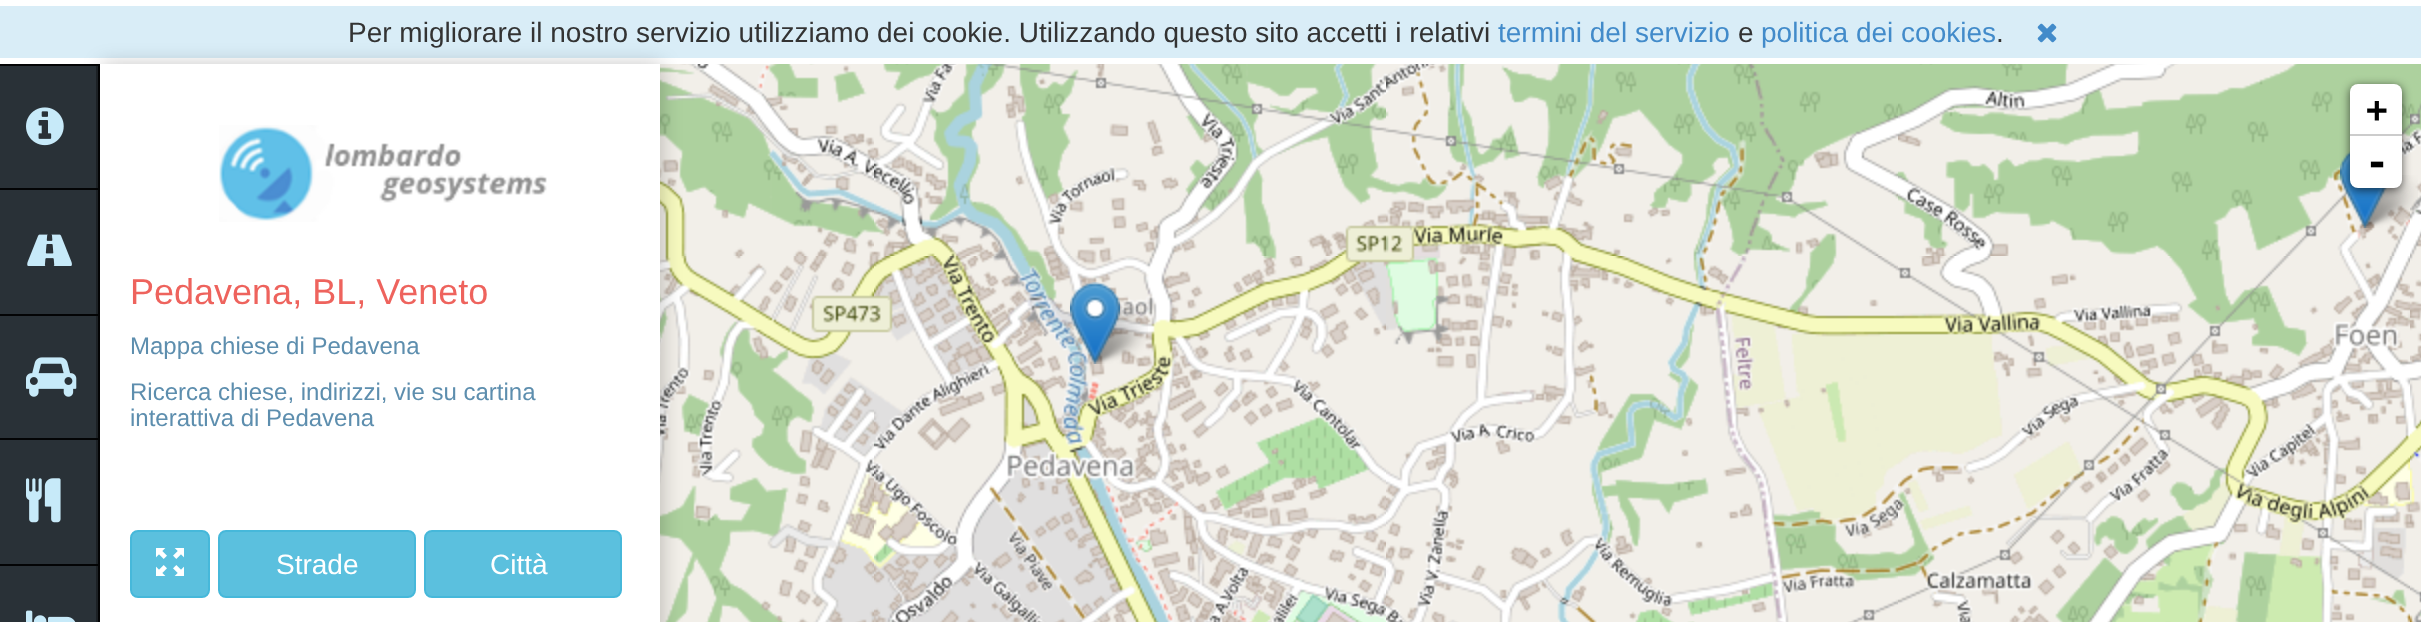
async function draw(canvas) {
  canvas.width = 2421;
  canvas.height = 622;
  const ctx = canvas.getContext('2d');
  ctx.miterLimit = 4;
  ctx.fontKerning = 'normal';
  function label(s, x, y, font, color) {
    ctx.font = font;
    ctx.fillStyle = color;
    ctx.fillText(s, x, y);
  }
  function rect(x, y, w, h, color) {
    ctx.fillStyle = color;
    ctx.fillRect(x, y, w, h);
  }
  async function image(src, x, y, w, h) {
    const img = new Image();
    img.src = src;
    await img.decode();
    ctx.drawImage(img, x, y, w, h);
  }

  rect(0, 0, 2421, 622, '#fff');
  rect(0, 6, 2421, 52, '#d9edf7');
  label('Per migliorare il nostro servizio utilizziamo dei cookie. Utilizzando questo sito accetti i relativi', 348, 42, '28px Liberation Sans', '#333');
  label('termini del servizio', 1498, 42, '28px Liberation Sans', '#428bca');
  label('e', 1738, 42, '28px Liberation Sans', '#333');
  label('politica dei cookies', 1761, 42, '28px Liberation Sans', '#428bca');
  label('.', 1996, 42, '28px Liberation Sans', '#333');
  await image('assets/img1.png', 2037, 23, 20, 20);
  await image('assets/img2.png', 660, 64, 214, 192);
  await image('assets/img3.png', 874, 64, 512, 192);
  await image('assets/img4.png', 1386, 64, 512, 192);
  await image('assets/img5.png', 1898, 64, 512, 192);
  await image('assets/img6.png', 2410, 64, 11, 192);
  await image('assets/img7.png', 660, 256, 214, 366);
  await image('assets/img8.png', 874, 256, 512, 366);
  await image('assets/img9.png', 1386, 256, 512, 366);
  await image('assets/img10.png', 1898, 256, 512, 366);
  await image('assets/img11.png', 2410, 256, 11, 366);
  await image('assets/img14.png', 2358, 175, 60, 53);
  await image('assets/img12.png', 2340, 151, 47, 77);
  await image('assets/img15.png', 1088, 307, 60, 57);
  await image('assets/img13.png', 1070, 282, 50, 82);
  ctx.fillStyle = '#000000a6';
  ctx.filter = 'blur(5px)';
  ctx.beginPath();
  ctx.roundRect(2350, 86, 52, 104, 8);
  ctx.fill();
  ctx.filter = 'none';
  ctx.fillStyle = '#fff';
  ctx.beginPath();
  ctx.roundRect(2350, 84, 52, 52, [8, 8, 0, 0]);
  ctx.fill();
  rect(2350, 134, 52, 2, '#ccc');
  label('+', 2366, 122, 'bold 36px DejaVu Sans Mono', '#000');
  ctx.fillStyle = '#fff';
  ctx.beginPath();
  ctx.roundRect(2350, 136, 52, 52, [0, 0, 8, 8]);
  ctx.fill();
  label('-', 2365, 176, 'bold 40px DejaVu Sans Mono', '#000');
  ctx.fillStyle = '#00000038';
  ctx.filter = 'blur(10px)';
  ctx.beginPath();
  ctx.rect(102, 64, 560, 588);
  ctx.fill();
  ctx.filter = 'none';
  rect(0, 66, 96, 556, '#293137');
  rect(96, 64, 2, 558, '#1c2125');
  rect(98, 64, 2, 558, '#030405');
  rect(0, 64, 98, 2, '#030405');
  rect(0, 188, 98, 2, '#030405');
  await image('assets/img16.png', 26, 107, 38, 39);
  rect(0, 314, 98, 2, '#030405');
  await image('assets/img17.png', 27, 234, 45, 32);
  rect(0, 438, 98, 2, '#030405');
  await image('assets/img18.png', 26, 357, 51, 40);
  rect(0, 564, 98, 2, '#030405');
  await image('assets/img19.png', 26, 478, 35, 45);
  await image('assets/img20.png', 26, 610, 50, 12);
  rect(100, 64, 560, 558, '#fff');
  await image('assets/img21.png', 219, 125, 328, 97);
  label('Pedavena, BL, Veneto', 130, 304, '36px Liberation Sans', '#ee635d');
  label('Mappa chiese di Pedavena', 130, 354, '24px Liberation Sans', '#5d8eae');
  label('Ricerca chiese, indirizzi, vie su cartina', 130, 400, '24px Liberation Sans', '#5d8eae');
  label('interattiva di Pedavena', 130, 426, '24px Liberation Sans', '#5d8eae');
  ctx.fillStyle = '#5bc0de';
  ctx.beginPath();
  ctx.roundRect(131, 531, 78, 66, 7);
  ctx.fill();
  ctx.strokeStyle = '#46b8da';
  ctx.lineWidth = 2;
  ctx.stroke();
  await image('assets/img22.png', 156, 548, 28, 28);
  ctx.beginPath();
  ctx.roundRect(219, 531, 196, 66, 7);
  ctx.fill();
  ctx.stroke();
  label('Strade', 276, 574, '28px Liberation Sans', '#fff');
  ctx.fillStyle = '#5bc0de';
  ctx.beginPath();
  ctx.roundRect(425, 531, 196, 66, 7);
  ctx.fill();
  ctx.stroke();
  label('Città', 490, 574, '28px Liberation Sans', '#fff');
}

draw(document.querySelector('canvas'));
